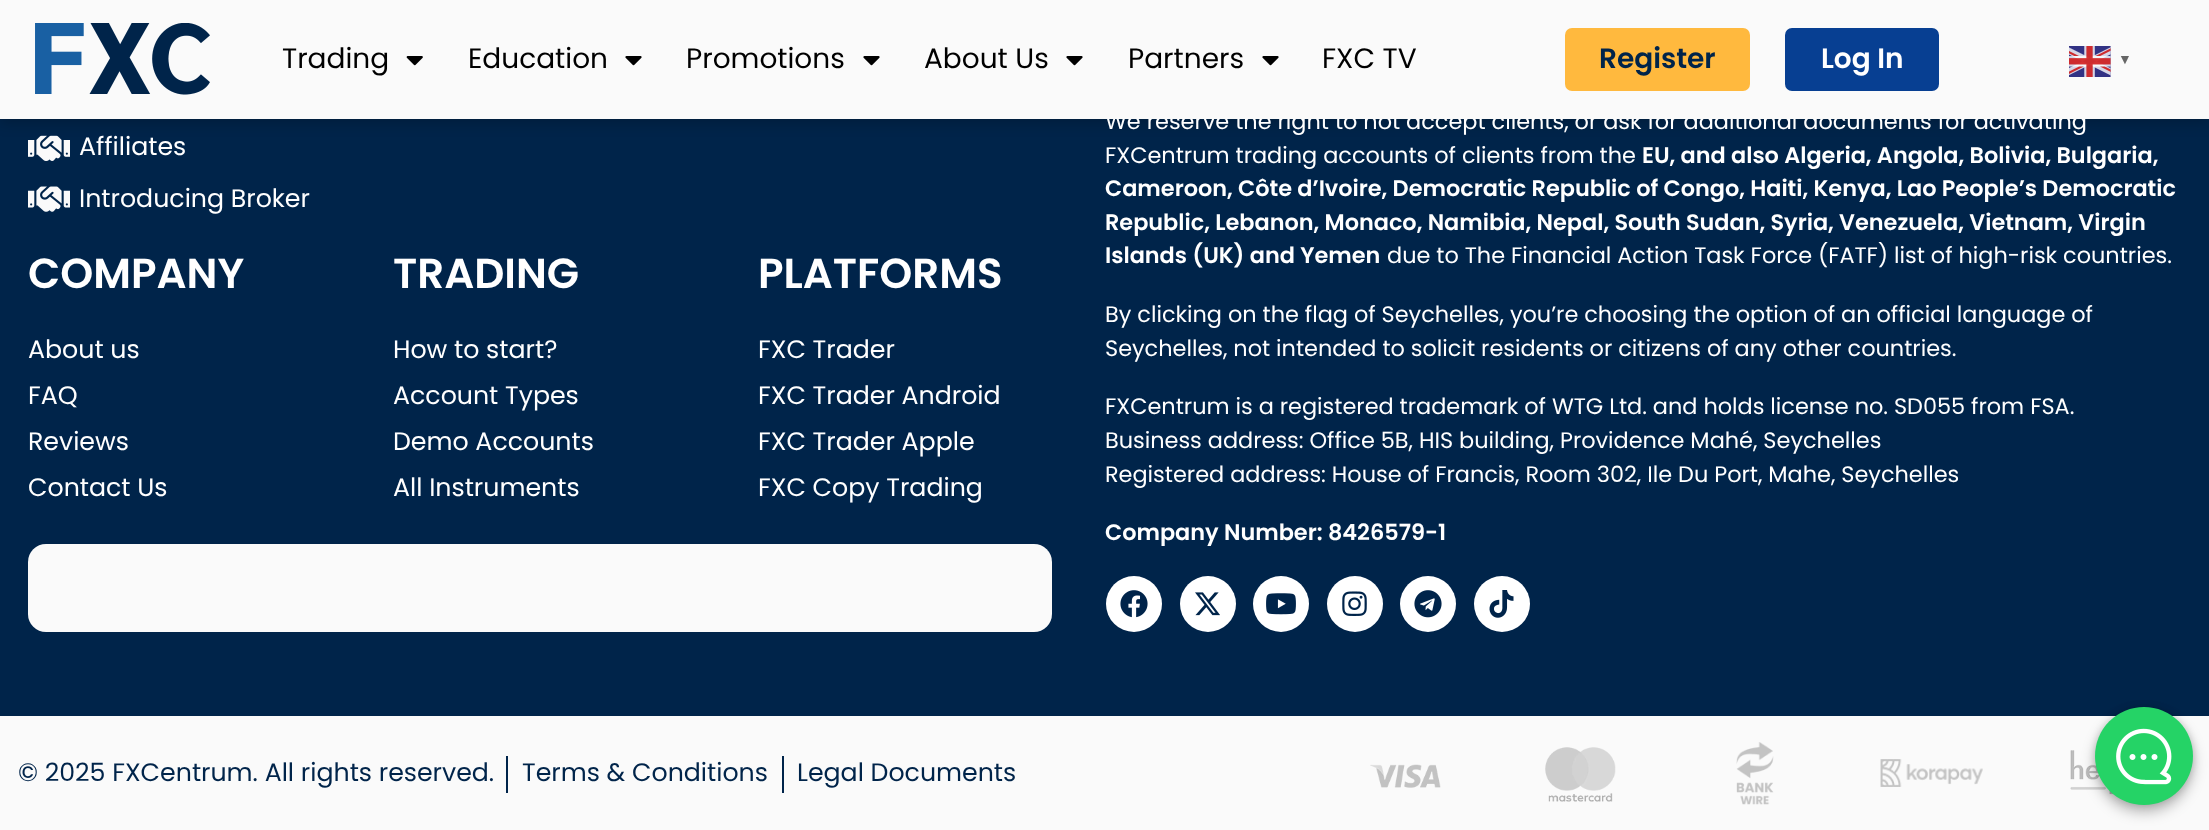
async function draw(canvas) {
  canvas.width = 2209;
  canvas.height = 830;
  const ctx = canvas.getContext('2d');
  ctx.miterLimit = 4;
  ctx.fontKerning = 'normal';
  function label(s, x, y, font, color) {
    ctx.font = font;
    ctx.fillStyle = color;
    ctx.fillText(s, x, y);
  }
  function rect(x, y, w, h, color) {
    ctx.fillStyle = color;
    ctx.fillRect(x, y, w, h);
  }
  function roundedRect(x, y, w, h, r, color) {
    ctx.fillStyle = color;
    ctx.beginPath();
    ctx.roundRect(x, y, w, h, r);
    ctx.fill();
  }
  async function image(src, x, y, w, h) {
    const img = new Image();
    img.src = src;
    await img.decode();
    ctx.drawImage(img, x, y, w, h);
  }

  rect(0, 0, 2209, 830, '#00244a');
  await image('assets/img5.png', 28, 135, 42, 26);
  ctx.fillStyle = '#00000033';
  ctx.filter = 'blur(7px)';
  ctx.beginPath();
  ctx.rect(0, 4, 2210, 119);
  ctx.fill();
  ctx.filter = 'none';
  label('We reserve the right to not accept clients, or ask for additional documents for activating', 1105, 129, '22.4px Poppins', '#fff');
  rect(0, 0, 2209, 119, '#fafafa');
  await image('assets/img1.png', 35, 23, 175, 72);
  label('Trading', 282, 68, '28px Poppins', '#000');
  await image('assets/img2.png', 406, 56, 17, 10);
  label('Education', 468, 68, '28px Poppins', '#000');
  await image('assets/img3.png', 625, 56, 17, 10);
  label('Promotions', 686, 68, '28px Poppins', '#000');
  await image('assets/img3.png', 863, 56, 17, 10);
  label('About Us', 924, 68, '28px Poppins', '#000');
  await image('assets/img3.png', 1066, 56, 17, 10);
  label('Partners', 1128, 68, '28px Poppins', '#000');
  await image('assets/img3.png', 1262, 56, 17, 10);
  label('FXC TV', 1322, 68, '28px Poppins', '#000');
  roundedRect(1565, 28, 185, 63, 7, '#ffb93e');
  label('Register', 1599, 68, '600 28px Poppins', '#00244a');
  roundedRect(1785, 28, 154, 63, 7, '#073f92');
  label('Log In', 1821, 68, '600 28px Poppins', '#fff');
  await image('assets/img4.png', 2069, 46, 42, 31);
  label('▼', 2118, 64, 'bold 14px Liberation Sans', '#666');
  label('Affiliates', 79, 155, '25.25px Poppins', '#fff');
  await image('assets/img6.png', 28, 186, 42, 26);
  label('Introducing Broker', 79, 207, '25.25px Poppins', '#fff');
  label('COMPANY', 28, 288, '600 42px Poppins', '#fff');
  label('About us', 28, 358, '25.25px Poppins', '#fff');
  label('FAQ', 28, 404, '25.25px Poppins', '#fff');
  label('Reviews', 28, 450, '25.25px Poppins', '#fff');
  label('Contact Us', 28, 496, '25.25px Poppins', '#fff');
  label('TRADING', 393, 288, '600 42px Poppins', '#fff');
  label('How to start?', 393, 358, '25.25px Poppins', '#fff');
  label('Account Types', 393, 404, '25.25px Poppins', '#fff');
  label('Demo Accounts', 393, 450, '25.25px Poppins', '#fff');
  label('All Instruments', 393, 496, '25.25px Poppins', '#fff');
  label('PLATFORMS', 758, 288, '600 42px Poppins', '#fff');
  label('FXC Trader', 758, 358, '25.25px Poppins', '#fff');
  label('FXC Trader Android', 758, 404, '25.25px Poppins', '#fff');
  label('FXC Trader Apple', 758, 450, '25.25px Poppins', '#fff');
  label('FXC Copy Trading', 758, 496, '25.25px Poppins', '#fff');
  roundedRect(28, 544, 1024, 88, 18, '#fafafa');
  label('FXCentrum trading accounts of clients from the', 1105, 163, '22.4px Poppins', '#fff');
  label('EU, and also Algeria, Angola, Bolivia, Bulgaria,', 1642, 163, '600 22.4px Poppins', '#fff');
  label('Cameroon, Côte d’Ivoire, Democratic Republic of Congo, Haiti, Kenya, Lao People’s Democratic', 1105, 196, '600 22.4px Poppins', '#fff');
  label('Republic, Lebanon, Monaco, Namibia, Nepal, South Sudan, Syria, Venezuela, Vietnam, Virgin', 1105, 230, '600 22.4px Poppins', '#fff');
  label('Islands (UK) and Yemen', 1105, 263, '600 22.4px Poppins', '#fff');
  label('due to The Financial Action Task Force (FATF) list of high-risk countries.', 1387, 263, '22.4px Poppins', '#fff');
  label('By clicking on the flag of Seychelles, you’re choosing the option of an official language of', 1105, 322, '22.4px Poppins', '#fff');
  label('Seychelles, not intended to solicit residents or citizens of any other countries.', 1105, 356, '22.4px Poppins', '#fff');
  label('FXCentrum is a registered trademark of WTG Ltd. and holds license no. SD055 from FSA.', 1105, 414, '22.4px Poppins', '#fff');
  label('Business address: Office 5B, HIS building, Providence Mahé, Seychelles', 1105, 448, '22.4px Poppins', '#fff');
  label('Registered address: House of Francis, Room 302, Ile Du Port, Mahe, Seychelles', 1105, 482, '22.4px Poppins', '#fff');
  label('Company Number: 8426579-1', 1105, 540, '600 22.4px Poppins', '#fff');
  ctx.beginPath();
  ctx.arc(1134, 604, 28, 0, 2 * Math.PI);
  ctx.fill();
  await image('assets/img7.png', 1120, 590, 28, 28);
  ctx.beginPath();
  ctx.arc(1208, 604, 28, 0, 2 * Math.PI);
  ctx.fill();
  await image('assets/img8.png', 1195, 592, 25, 24);
  ctx.beginPath();
  ctx.arc(1281, 604, 28, 0, 2 * Math.PI);
  ctx.fill();
  await image('assets/img9.png', 1266, 593, 30, 22);
  ctx.beginPath();
  ctx.arc(1355, 604, 28, 0, 2 * Math.PI);
  ctx.fill();
  await image('assets/img10.png', 1342, 591, 25, 25);
  ctx.beginPath();
  ctx.arc(1428, 604, 28, 0, 2 * Math.PI);
  ctx.fill();
  await image('assets/img11.png', 1414, 590, 28, 28);
  ctx.beginPath();
  ctx.arc(1502, 604, 28, 0, 2 * Math.PI);
  ctx.fill();
  await image('assets/img12.png', 1489, 590, 25, 28);
  rect(0, 716, 2209, 114, '#fafafa');
  label('© 2025 FXCentrum. All rights reserved.', 18, 781, '25.25px Poppins', '#00244a');
  rect(506, 756, 2, 37, '#00244a');
  label('Terms & Conditions', 522, 781, '25.25px Poppins', '#00244a');
  rect(782, 756, 2, 37, '#00244a');
  label('Legal Documents', 797, 781, '25.25px Poppins', '#00244a');
  await image('assets/img13.png', 1370, 764, 71, 24);
  await image('assets/img14.png', 1545, 747, 71, 55);
  await image('assets/img15.png', 1736, 742, 38, 63);
  await image('assets/img16.png', 1880, 759, 103, 28);
  await image('assets/img17.png', 2070, 750, 43, 45);
  ctx.fillStyle = '#00000047';
  ctx.filter = 'blur(7px)';
  ctx.beginPath();
  ctx.roundRect(2095, 714, 98, 98, 49);
  ctx.fill();
  ctx.filter = 'none';
  ctx.fillStyle = '#00000024';
  ctx.filter = 'blur(3.5px)';
  ctx.beginPath();
  ctx.roundRect(2095, 707, 98, 98, 49);
  ctx.fill();
  ctx.filter = 'none';
  ctx.fillStyle = '#25d366';
  ctx.beginPath();
  ctx.arc(2144, 756, 49, 0, 2 * Math.PI);
  ctx.fill();
  await image('assets/img18.png', 2116, 728, 56, 57);
}

draw(document.querySelector('canvas'));
